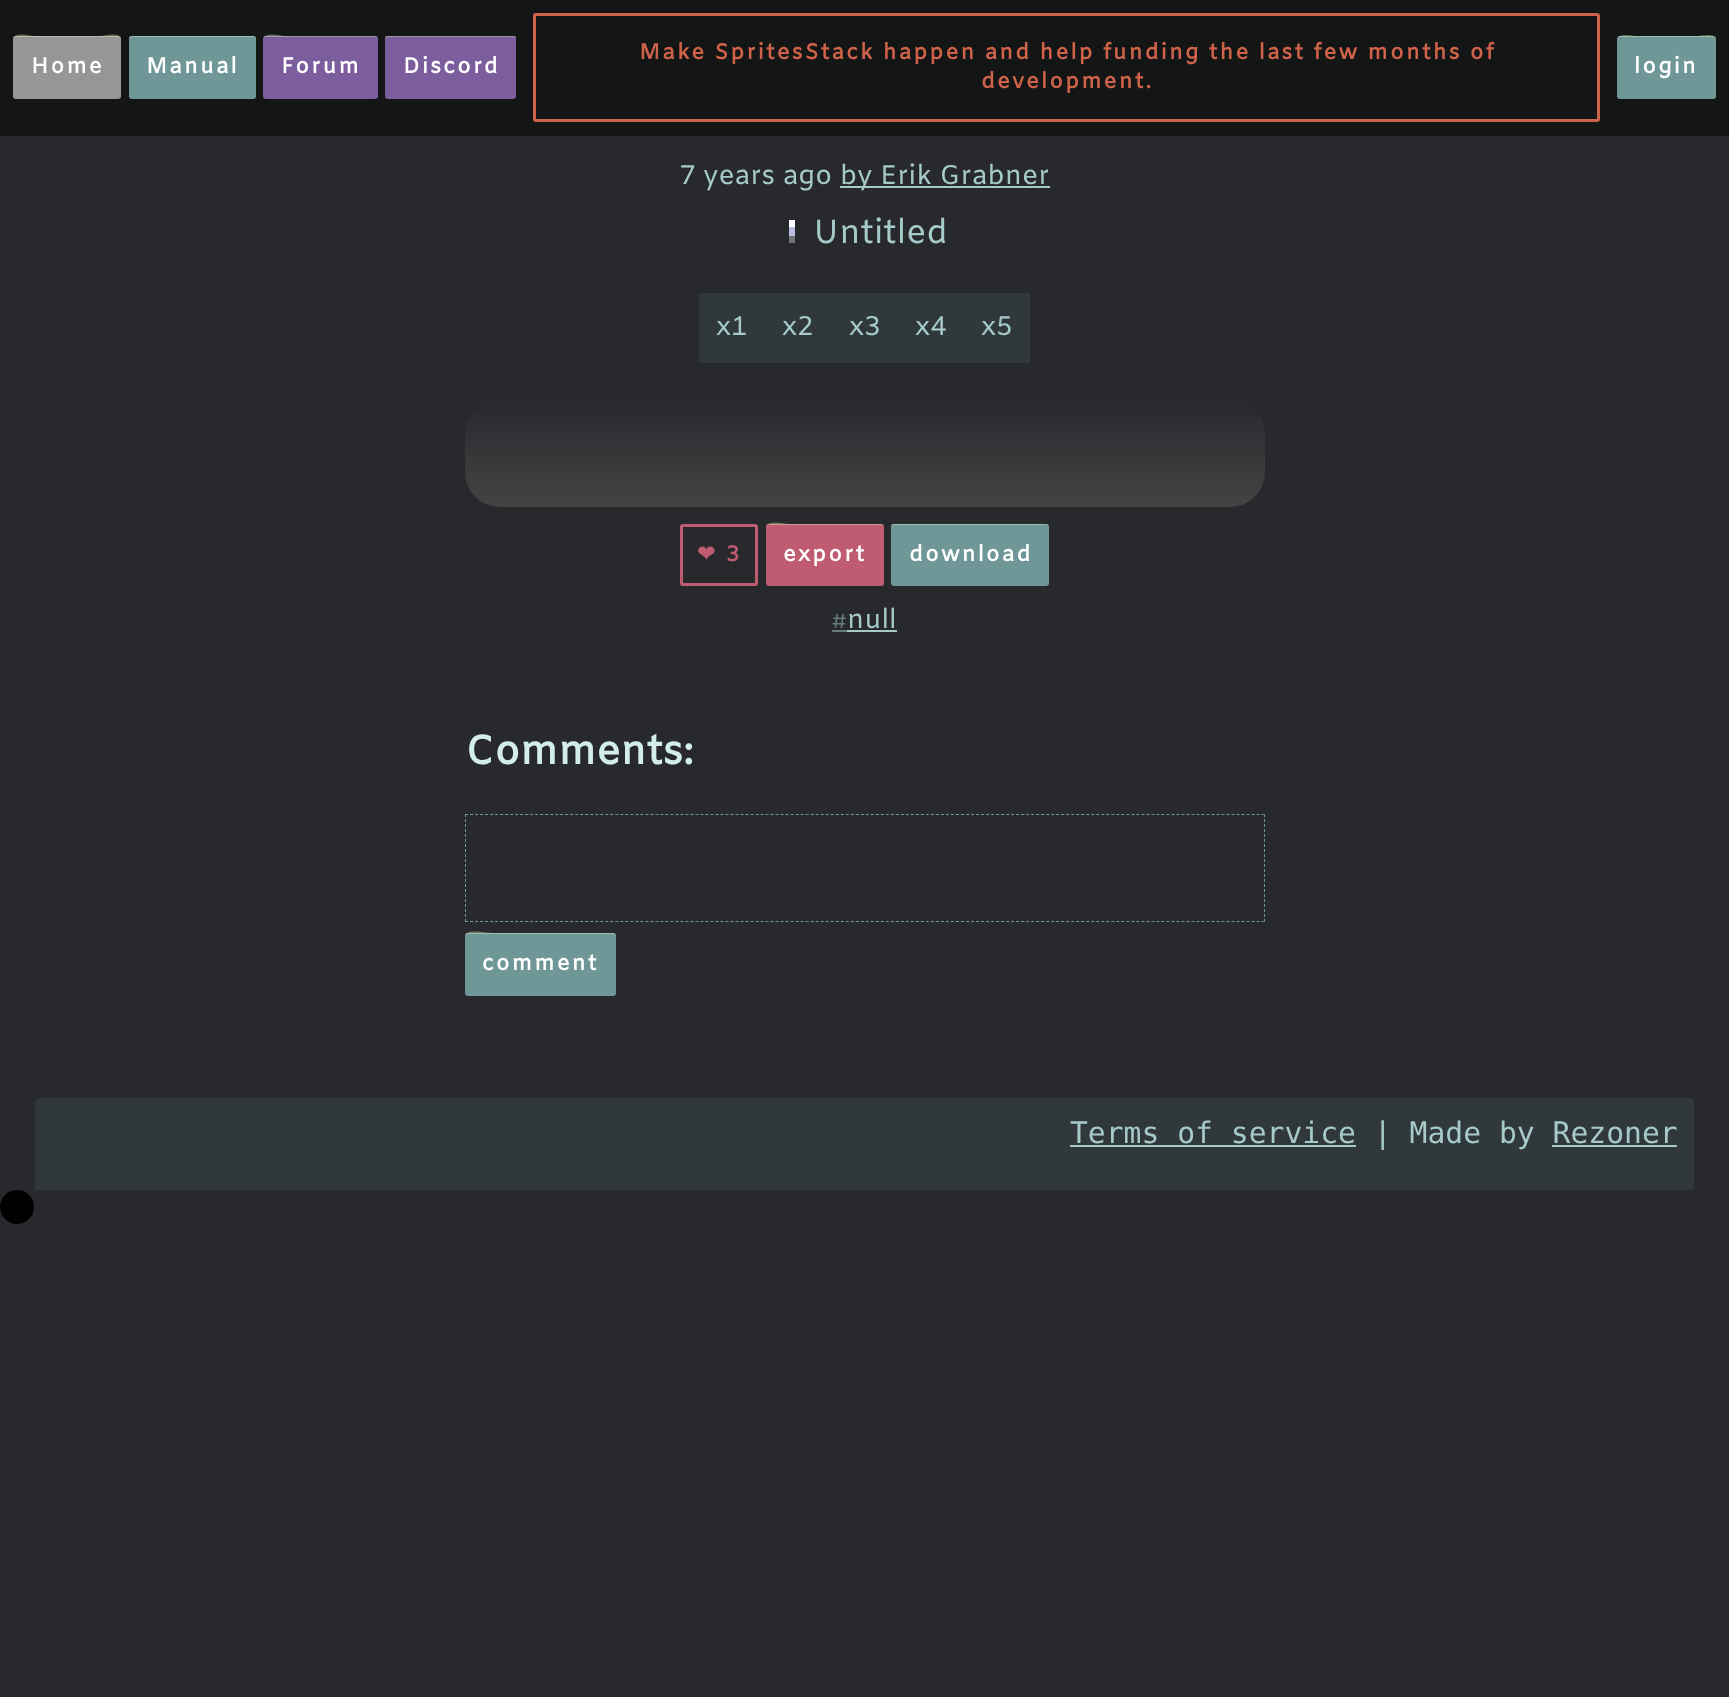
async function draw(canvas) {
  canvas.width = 1729;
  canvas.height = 1697;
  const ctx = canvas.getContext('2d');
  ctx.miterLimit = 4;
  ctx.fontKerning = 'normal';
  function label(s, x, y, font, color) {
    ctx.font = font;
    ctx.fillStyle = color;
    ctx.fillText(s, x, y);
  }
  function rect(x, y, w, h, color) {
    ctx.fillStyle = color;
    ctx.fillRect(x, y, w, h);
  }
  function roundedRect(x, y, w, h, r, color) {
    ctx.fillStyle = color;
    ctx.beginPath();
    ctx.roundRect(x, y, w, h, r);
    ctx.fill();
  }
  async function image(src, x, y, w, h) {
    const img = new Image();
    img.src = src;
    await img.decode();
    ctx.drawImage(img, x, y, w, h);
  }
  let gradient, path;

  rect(0, 0, 1729, 1697, '#27292d');
  rect(0, 0, 1729, 136, '#141515');
  roundedRect(13, 36, 108, 63, 3, '#969696');
  ctx.fillStyle = '#ebfecc5e';
  path = new Path2D('M16 37H118C120 37 121 38 121 40C121 31 103 36 101 36H33C31 36 13 31 13 40C13 38 14 37 16 37Z');
  ctx.fill(path);
  ctx.letterSpacing = '2.15px';
  label('Home', 31, 73, 'bold 21.6px Amiko', '#fff');
  roundedRect(129, 36, 127, 63, 3, '#6f9797');
  ctx.fillStyle = '#ebfecc5e';
  path = new Path2D('M132 37H253C255 37 256 38 256 40V39C256 37 255 36 253 36H132C130 36 129 37 129 39V40C129 38 130 37 132 37Z');
  ctx.fill(path);
  label('Manual', 146, 73, 'bold 21.6px Amiko', '#fff');
  roundedRect(263, 36, 115, 63, 3, '#7c5d9d');
  ctx.fillStyle = '#ebfecc5e';
  path = new Path2D('M266 37H375C377 37 378 38 378 40C378 38 377 36 375 36H284C283 36 263 31 263 40C263 38 264 37 266 37Z');
  ctx.fill(path);
  label('Forum', 281, 73, 'bold 21.6px Amiko', '#fff');
  roundedRect(385, 36, 131, 63, 3, '#7c5d9d');
  ctx.fillStyle = '#ebfecc5e';
  path = new Path2D('M388 37H513C515 37 516 38 516 40C516 38 516 36 514 36H387C385 36 385 38 385 40C385 38 386 37 388 37Z');
  ctx.fill(path);
  label('Discord', 403, 73, 'bold 21.6px Amiko', '#fff');
  ctx.beginPath();
  ctx.roundRect(534.5, 14.5, 1064, 106, 1.5);
  ctx.strokeStyle = '#cf634a';
  ctx.lineWidth = 3;
  ctx.stroke();
  label('Make SpritesStack happen and help funding the last few months of', 639, 59, 'bold 21.6px Amiko', '#cf634a');
  label('development.', 981, 88, 'bold 21.6px Amiko', '#cf634a');
  roundedRect(1617, 36, 99, 63, 3, '#6f9797');
  ctx.fillStyle = '#ebfecc5e';
  path = new Path2D('M1620 37H1713C1715 37 1716 38 1716 40C1716 32 1700 36 1698 36H1636C1633 36 1617 32 1617 40C1617 38 1618 37 1620 37Z');
  ctx.fill(path);
  label('login', 1634, 73, 'bold 21.6px Amiko', '#fff');
  ctx.letterSpacing = '0px';
  label('7 years ago', 679, 184, '27px Amiko', '#a5cac9');
  rect(840, 186, 210, 2, '#a5cac9');
  label('by Erik Grabner', 840, 184, '27px Amiko', '#a5cac9');
  await image('assets/img1.png', 789, 220, 6, 23);
  label('Untitled', 813, 243, '33.5px Amiko', '#a5cac9');
  rect(699, 293, 331, 70, '#30383b');
  label('x1', 716, 335, '27px Amiko', '#a5cac9');
  label('x2', 782, 335, '27px Amiko', '#a5cac9');
  label('x3', 849, 335, '27px Amiko', '#a5cac9');
  label('x4', 915, 335, '27px Amiko', '#a5cac9');
  label('x5', 981, 335, '27px Amiko', '#a5cac9');
  gradient = ctx.createLinearGradient(865, 399, 865, 507);
  gradient.addColorStop(0, '#27292d');
  gradient.addColorStop(1, '#444');
  ctx.fillStyle = gradient;
  ctx.beginPath();
  ctx.roundRect(465, 399, 800, 108, 35);
  ctx.fill();
  ctx.beginPath();
  ctx.roundRect(681.5, 525.5, 75, 59, 1.5);
  ctx.strokeStyle = '#bf5c71';
  ctx.stroke();
  ctx.letterSpacing = '2.15px';
  label('❤', 697, 561, 'bold 21.6px DejaVu Sans', '#bf5c71');
  label('3', 726, 561, 'bold 21.6px Amiko', '#bf5c71');
  roundedRect(766, 524, 118, 62, 3, '#bf5c71');
  ctx.fillStyle = '#ebfecc5e';
  path = new Path2D('M769 525H881C883 525 884 526 884 528C884 526 883 524 881 524H788C786 524 766 519 766 528C766 526 767 525 769 525Z');
  ctx.fill(path);
  label('export', 783, 561, 'bold 21.6px Amiko', '#fff');
  roundedRect(891, 524, 158, 62, 3, '#6f9797');
  ctx.fillStyle = '#ebfecc5e';
  path = new Path2D('M894 525H1046C1048 525 1049 526 1049 528C1049 526 1048 524 1046 524H893C891 524 891 526 891 528C891 526 892 525 894 525Z');
  ctx.fill(path);
  label('download', 909, 561, 'bold 21.6px Amiko', '#fff');
  ctx.letterSpacing = '0px';
  label('#', 832, 628, '20px Amiko', '#667a7b');
  rect(847, 630, 50, 2, '#a5cac9');
  rect(832, 630, 15, 2, '#667a7b');
  label('null', 847, 628, '27px Amiko', '#a5cac9');
  label('Comments:', 465, 764, 'bold 40.5px Amiko', '#d3edec');
  path = new Path2D('M465 814.5H1265');
  ctx.strokeStyle = '#6f9797';
  ctx.lineWidth = 1;
  ctx.setLineDash([3, 2.01]);
  ctx.stroke(path);
  path = new Path2D('M1264.5 814V922');
  ctx.setLineDash([3, 2]);
  ctx.stroke(path);
  path = new Path2D('M465 921.5H1265');
  ctx.setLineDash([3, 2.01]);
  ctx.stroke(path);
  path = new Path2D('M465.5 814V922');
  ctx.setLineDash([3, 2]);
  ctx.stroke(path);
  roundedRect(465, 933, 151, 63, 3, '#6f9797');
  ctx.fillStyle = '#ebfecc5e';
  path = new Path2D('M468 934H613C615 934 616 935 616 937C616 935 616 934 614 933H492C485 933 465 928 465 937C465 935 466 934 468 934Z');
  ctx.fill(path);
  ctx.letterSpacing = '2.15px';
  label('comment', 482, 970, 'bold 21.6px Amiko', '#fff');
  ctx.fillStyle = '#30383b';
  ctx.beginPath();
  ctx.roundRect(35, 1098, 1659, 92, [5, 5, 0, 0]);
  ctx.fill();
  rect(1070, 1145, 286, 2, '#a5cac9');
  ctx.letterSpacing = '0px';
  label('Terms of service | Made by Rezoner', 1070, 1143, '29.7px DejaVu Sans Mono', '#a5cac9');
  rect(1552, 1145, 125, 2, '#a5cac9');
  ctx.fillStyle = '#000';
  ctx.beginPath();
  ctx.arc(17, 1207, 17, 0, 2 * Math.PI);
  ctx.fill();
}

draw(document.querySelector('canvas'));
